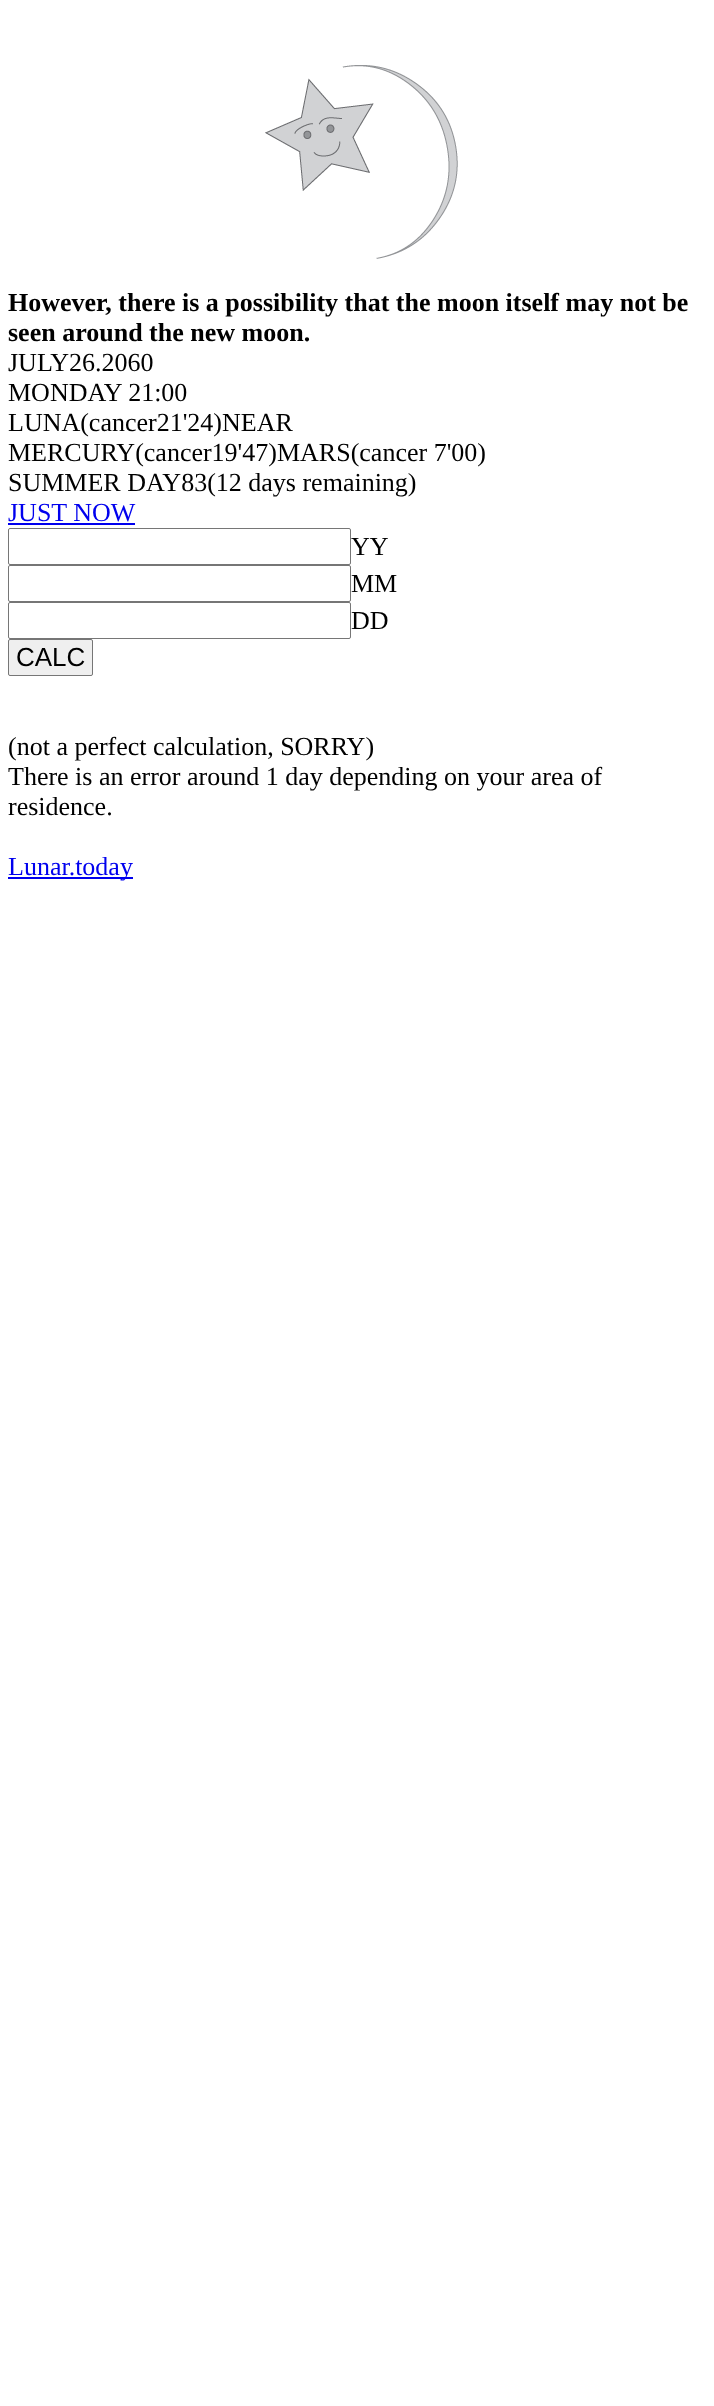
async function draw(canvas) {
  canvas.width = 714;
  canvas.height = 2406;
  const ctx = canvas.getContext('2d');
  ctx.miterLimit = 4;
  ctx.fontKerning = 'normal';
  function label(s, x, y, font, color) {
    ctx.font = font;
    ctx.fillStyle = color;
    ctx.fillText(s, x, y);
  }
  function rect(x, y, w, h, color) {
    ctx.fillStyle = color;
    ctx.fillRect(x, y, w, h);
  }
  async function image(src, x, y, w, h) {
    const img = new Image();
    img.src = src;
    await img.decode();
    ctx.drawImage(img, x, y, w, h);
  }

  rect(0, 0, 714, 2406, '#fff');
  await image('assets/img1.png', 265, 65, 193, 194);
  label('However, there is a possibility that the moon itself may not be', 8, 311, 'bold 26px Liberation Serif', '#000');
  label('seen around the new moon.', 8, 341, 'bold 26px Liberation Serif', '#000');
  label('JULY26.2060', 8, 371, '26px Liberation Serif', '#000');
  label('MONDAY 21:00', 8, 401, '26px Liberation Serif', '#000');
  label('LUNA(cancer21\'24)NEAR', 8, 431, '26px Liberation Serif', '#000');
  label('MERCURY(cancer19\'47)MARS(cancer 7\'00)', 8, 461, '26px Liberation Serif', '#000');
  label('SUMMER DAY83(12 days remaining)', 8, 491, '26px Liberation Serif', '#000');
  label('JUST NOW', 8, 521, '26px Liberation Serif', '#00e');
  rect(8, 523, 127, 2, '#00e');
  ctx.beginPath();
  ctx.roundRect(8.5, 528.5, 342, 36, 1.5);
  ctx.strokeStyle = '#767676';
  ctx.stroke();
  label('YY', 351, 555, '26px Liberation Serif', '#000');
  ctx.beginPath();
  ctx.roundRect(8.5, 565.5, 342, 36, 1.5);
  ctx.stroke();
  label('MM', 351, 592, '26px Liberation Serif', '#000');
  ctx.beginPath();
  ctx.roundRect(8.5, 602.5, 342, 36, 1.5);
  ctx.stroke();
  label('DD', 351, 629, '26px Liberation Serif', '#000');
  ctx.fillStyle = '#efefef';
  ctx.beginPath();
  ctx.roundRect(8.5, 639.5, 84, 36, 1.5);
  ctx.fill();
  ctx.stroke();
  label('CALC', 16, 666, '26px Liberation Sans', '#000');
  label('(not a perfect calculation, SORRY)', 8, 755, '26px Liberation Serif', '#000');
  label('There is an error around 1 day depending on your area of', 8, 785, '26px Liberation Serif', '#000');
  label('residence.', 8, 815, '26px Liberation Serif', '#000');
  rect(8, 877, 125, 2, '#00e');
  label('Lunar.today', 8, 875, '26px Liberation Serif', '#00e');
}

draw(document.querySelector('canvas'));
